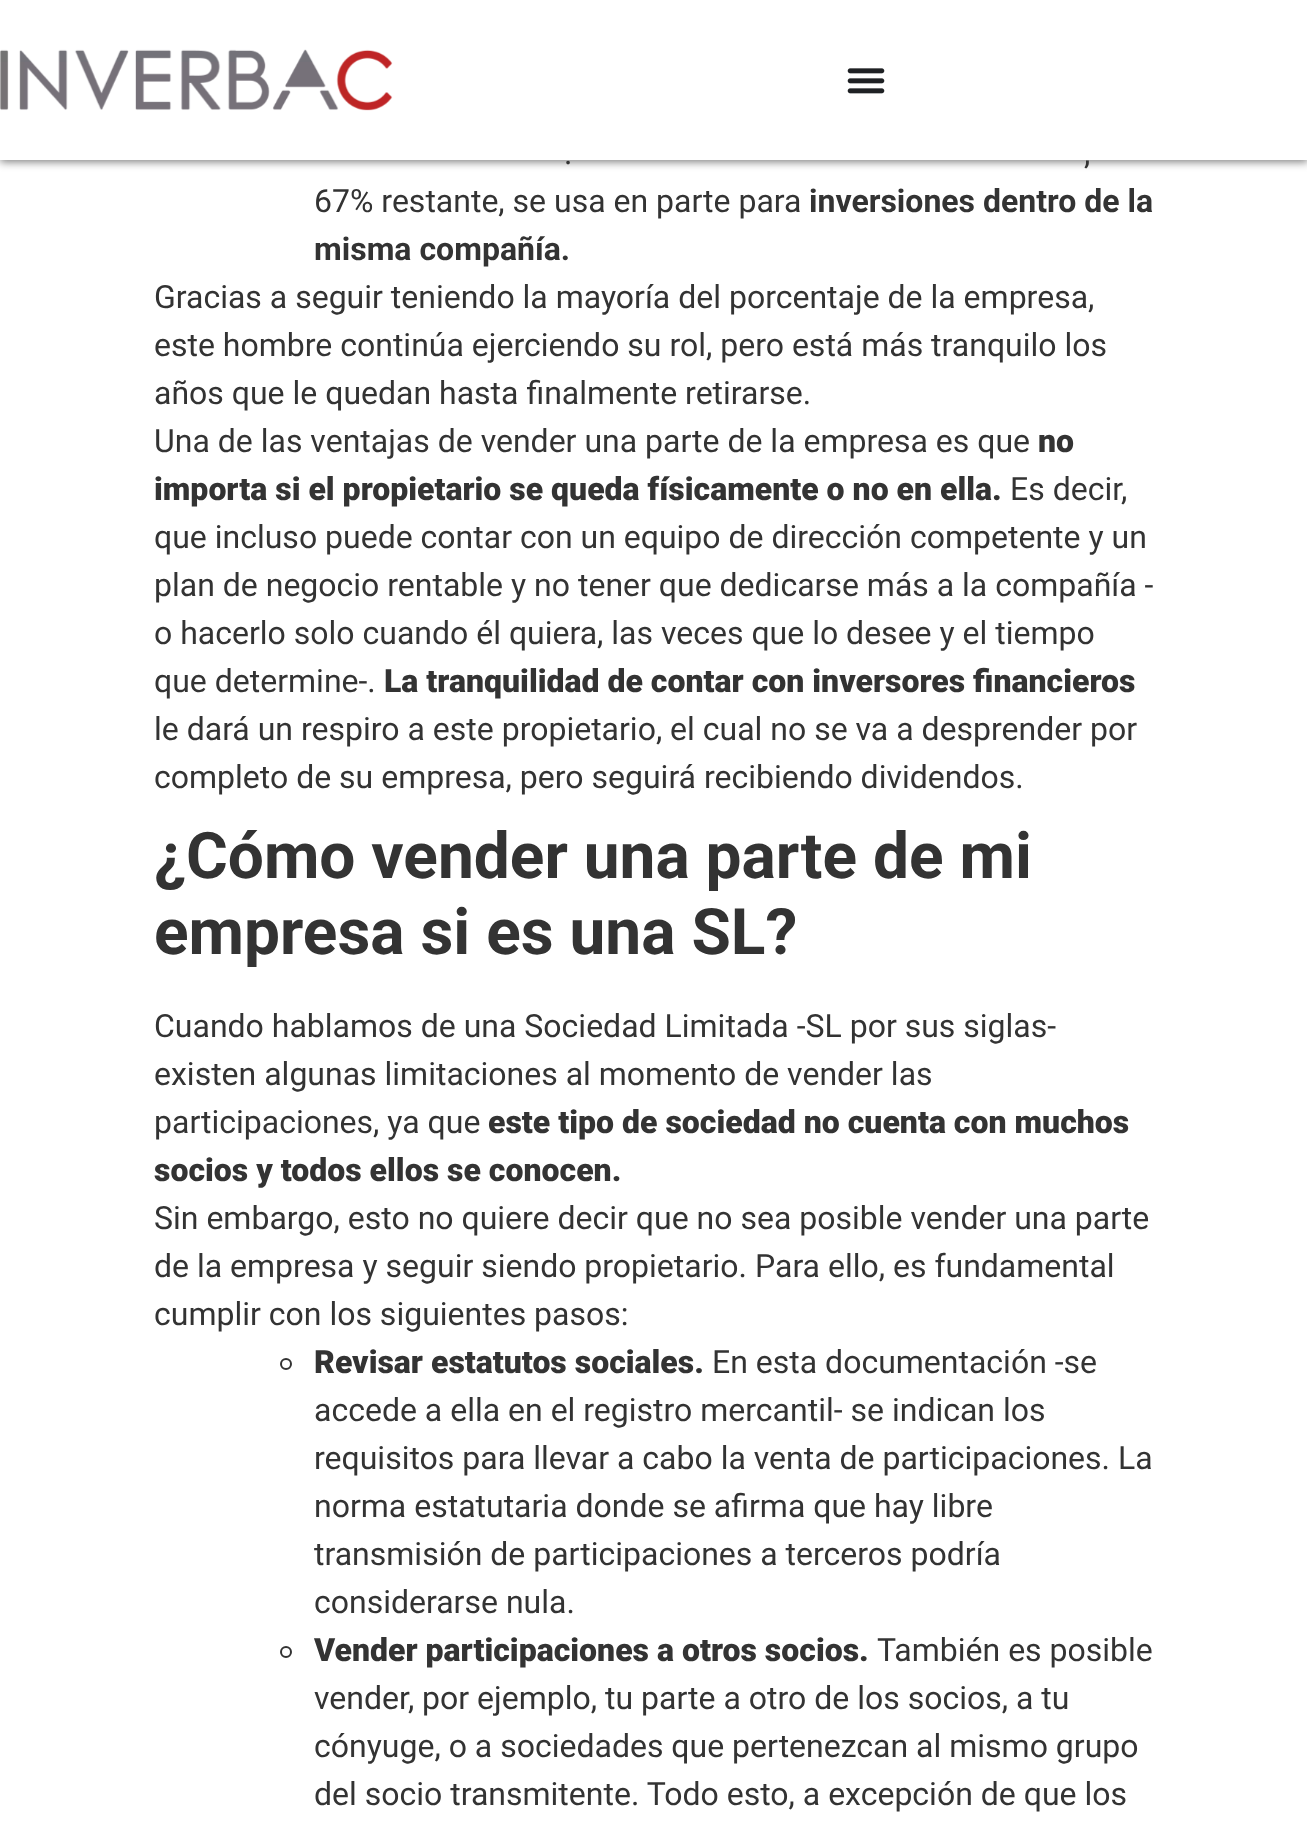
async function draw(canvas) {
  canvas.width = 1307;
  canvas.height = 1828;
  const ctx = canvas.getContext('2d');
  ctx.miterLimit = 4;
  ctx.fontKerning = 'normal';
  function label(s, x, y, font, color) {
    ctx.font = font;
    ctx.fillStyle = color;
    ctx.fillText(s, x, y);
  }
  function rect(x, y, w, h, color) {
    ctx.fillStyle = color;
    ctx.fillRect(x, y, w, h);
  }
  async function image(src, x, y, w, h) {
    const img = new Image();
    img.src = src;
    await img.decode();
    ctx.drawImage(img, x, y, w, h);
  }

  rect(0, 0, 1307, 1828, '#fff');
  ctx.fillStyle = '#00000080';
  ctx.filter = 'blur(4px)';
  ctx.beginPath();
  ctx.rect(0, 2, 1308, 160);
  ctx.fill();
  ctx.filter = 'none';
  rect(0, 0, 1307, 160, '#fff');
  await image('assets/img1.png', 0, 49, 393, 62);
  await image('assets/img2.png', 847, 68, 38, 26);
  label('.', 564, 164, '32px Roboto', '#333');
  label(',', 1084, 164, '32px Roboto', '#333');
  label('67% restante, se usa en parte para', 314, 212, '32px Roboto', '#333');
  label('inversiones dentro de la', 809, 212, 'bold 32px Roboto', '#333');
  label('misma compañía.', 314, 260, 'bold 32px Roboto', '#333');
  label('Gracias a seguir teniendo la mayoría del porcentaje de la empresa,', 154, 308, '32px Roboto', '#333');
  label('este hombre continúa ejerciendo su rol, pero está más tranquilo los', 154, 356, '32px Roboto', '#333');
  label('años que le quedan hasta finalmente retirarse.', 154, 404, '32px Roboto', '#333');
  label('Una de las ventajas de vender una parte de la empresa es que', 154, 452, '32px Roboto', '#333');
  label('no', 1038, 452, '900 32px Roboto', '#333');
  label('importa si el propietario se queda físicamente o no en ella.', 154, 500, '900 32px Roboto', '#333');
  label('Es decir,', 1010, 500, '32px Roboto', '#333');
  label('que incluso puede contar con un equipo de dirección competente y un', 154, 548, '32px Roboto', '#333');
  label('plan de negocio rentable y no tener que dedicarse más a la compañía -', 154, 596, '32px Roboto', '#333');
  label('o hacerlo solo cuando él quiera, las veces que lo desee y el tiempo', 154, 644, '32px Roboto', '#333');
  label('que determine-.', 154, 692, '32px Roboto', '#333');
  label('La tranquilidad de contar con inversores financieros', 384, 692, '900 32px Roboto', '#333');
  label('le dará un respiro a este propietario, el cual no se va a desprender por', 154, 740, '32px Roboto', '#333');
  label('completo de su empresa, pero seguirá recibiendo dividendos.', 154, 788, '32px Roboto', '#333');
  label('¿Cómo vender una parte de mi', 154, 878, 'bold 64px Roboto', '#333');
  label('empresa si es una SL?', 154, 954, 'bold 64px Roboto', '#333');
  label('Cuando hablamos de una Sociedad Limitada -SL por sus siglas-', 154, 1037, '32px Roboto', '#333');
  label('existen algunas limitaciones al momento de vender las', 154, 1085, '32px Roboto', '#333');
  label('participaciones, ya que', 154, 1133, '32px Roboto', '#333');
  label('este tipo de sociedad no cuenta con muchos', 488, 1133, '900 32px Roboto', '#333');
  label('socios y todos ellos se conocen.', 154, 1181, '900 32px Roboto', '#333');
  label('Sin embargo, esto no quiere decir que no sea posible vender una parte', 154, 1229, '32px Roboto', '#333');
  label('de la empresa y seguir siendo propietario. Para ello, es fundamental', 154, 1277, '32px Roboto', '#333');
  label('cumplir con los siguientes pasos:', 154, 1325, '32px Roboto', '#333');
  ctx.beginPath();
  ctx.arc(286, 1364, 5, 0, 2 * Math.PI);
  ctx.strokeStyle = '#333';
  ctx.lineWidth = 2;
  ctx.stroke();
  label('Revisar estatutos sociales.', 314, 1373, '900 32px Roboto', '#333');
  label('En esta documentación -se', 712, 1373, '32px Roboto', '#333');
  label('accede a ella en el registro mercantil- se indican los', 314, 1421, '32px Roboto', '#333');
  label('requisitos para llevar a cabo la venta de participaciones. La', 314, 1469, '32px Roboto', '#333');
  label('norma estatutaria donde se afirma que hay libre', 314, 1517, '32px Roboto', '#333');
  label('transmisión de participaciones a terceros podría', 314, 1565, '32px Roboto', '#333');
  label('considerarse nula.', 314, 1613, '32px Roboto', '#333');
  ctx.beginPath();
  ctx.arc(286, 1652, 5, 0, 2 * Math.PI);
  ctx.stroke();
  label('Vender participaciones a otros socios.', 314, 1661, '900 32px Roboto', '#333');
  label('También es posible', 877, 1661, '32px Roboto', '#333');
  label('vender, por ejemplo, tu parte a otro de los socios, a tu', 314, 1709, '32px Roboto', '#333');
  label('cónyuge, o a sociedades que pertenezcan al mismo grupo', 314, 1757, '32px Roboto', '#333');
  label('del socio transmitente. Todo esto, a excepción de que los', 314, 1805, '32px Roboto', '#333');
}

draw(document.querySelector('canvas'));
